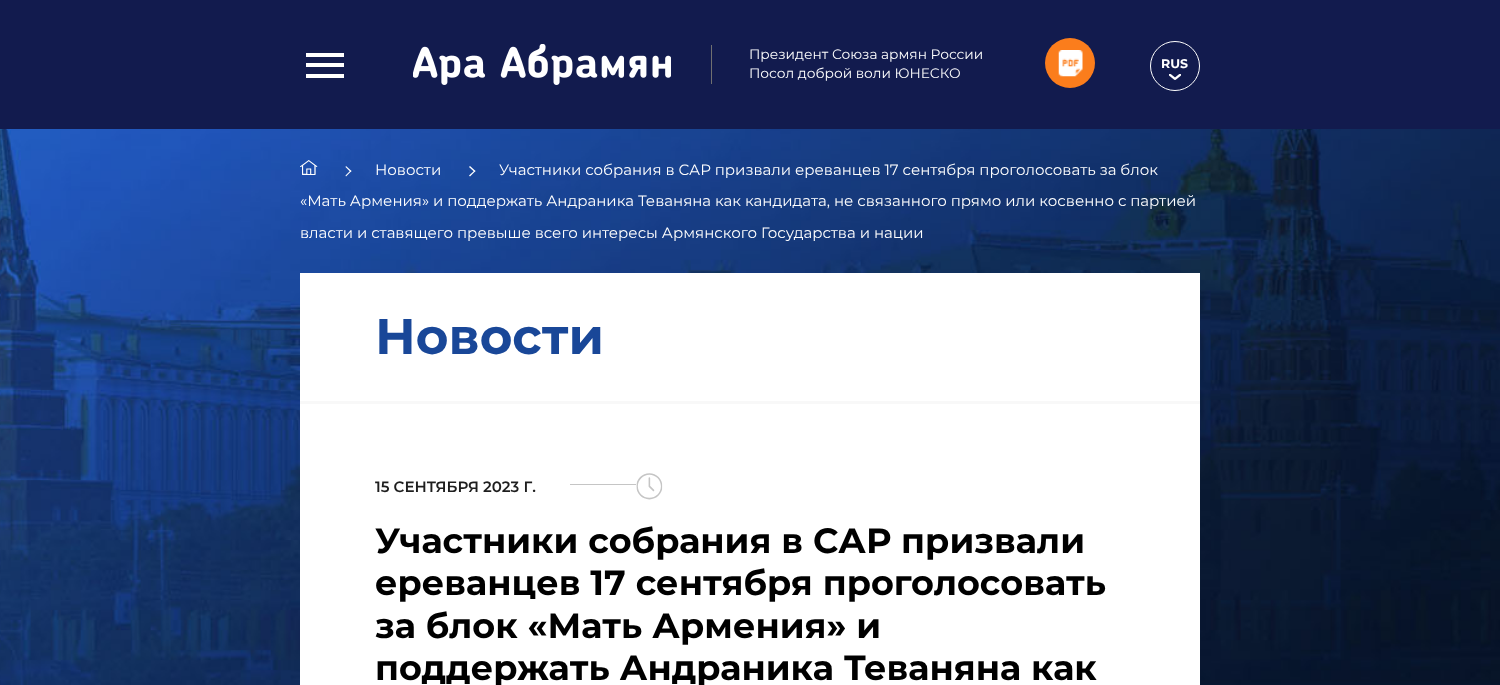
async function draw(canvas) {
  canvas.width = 1500;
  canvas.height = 685;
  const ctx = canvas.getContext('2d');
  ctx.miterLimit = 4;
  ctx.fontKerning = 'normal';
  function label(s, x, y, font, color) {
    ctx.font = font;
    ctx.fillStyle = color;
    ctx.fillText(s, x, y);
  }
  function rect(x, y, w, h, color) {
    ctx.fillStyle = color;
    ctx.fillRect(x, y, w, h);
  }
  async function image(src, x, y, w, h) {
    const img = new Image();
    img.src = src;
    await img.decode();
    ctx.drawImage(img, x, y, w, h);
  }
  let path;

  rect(0, 0, 1500, 685, '#fff');
  await image('assets/img1.png', 0, 129, 1500, 556);
  rect(0, 0, 1500, 129, '#121b4e');
  rect(306, 63, 38, 4, '#fff');
  rect(306, 53, 38, 4, '#fff');
  rect(306, 74, 38, 4, '#fff');
  await image('assets/img2.png', 413, 44, 258, 41);
  rect(711, 45, 1, 39, '#707070');
  label('Президент Союза армян России', 749, 59, '13.75px Montserrat', '#fff');
  label('Посол доброй воли ЮНЕСКО', 749, 78, '13.75px Montserrat', '#fff');
  ctx.fillStyle = '#fb7d1c';
  ctx.beginPath();
  ctx.arc(1070, 63, 25, 0, 2 * Math.PI);
  ctx.fill();
  await image('assets/img3.png', 1058, 50, 25, 27);
  ctx.beginPath();
  ctx.arc(1175, 66, 24.5, 0, 2 * Math.PI);
  ctx.strokeStyle = '#fff';
  ctx.stroke();
  label('RUS', 1161, 68, 'bold 12.5px Montserrat', '#fff');
  await image('assets/img4.png', 1169, 74, 12, 6);
  await image('assets/img5.png', 300, 160, 18, 15);
  label('Участники собрания в САР призвали ереванцев 17 сентября проголосовать за блок', 499, 175, '15px Montserrat', '#fff');
  label('«Мать Армения» и поддержать Андраника Теваняна как кандидата, не связанного прямо или косвенно с партией', 300, 206, '15px Montserrat', '#fff');
  label('власти и ставящего превыше всего интересы Армянского Государства и нации', 300, 238, '15px Montserrat', '#fff');
  path = new Path2D('M346 166L351.5 171L350.5 172L345.5 167Z');
  ctx.fill(path);
  path = new Path2D('M350.5 170.5L351.5 171L346 176.5L345.5 175.5Z');
  ctx.fill(path);
  label('Новости', 375, 175, '15px Montserrat', '#fff');
  path = new Path2D('M470 166L475.5 171L474.5 172L469 167Z');
  ctx.fill(path);
  path = new Path2D('M474.5 170.5L475.5 171L470 176.5L469 175.5Z');
  ctx.fill(path);
  rect(300, 273, 900, 412, '#fff');
  rect(300, 401, 900, 3, '#f8f8f8');
  label('Новости', 375, 354, 'bold 50px Montserrat', '#194798');
  label('15 СЕНТЯБРЯ 2023 Г.', 375, 492, '600 15px Montserrat', '#1e1e1e');
  rect(570, 484, 66, 1, '#c5c5c5');
  await image('assets/img6.png', 636, 473, 27, 27);
  label('Участники собрания в САР призвали', 375, 553, 'bold 35px Montserrat', '#000');
  label('ереванцев 17 сентября проголосовать', 375, 595, 'bold 35px Montserrat', '#000');
  label('за блок «Мать Армения» и', 375, 638, 'bold 35px Montserrat', '#000');
  label('поддержать Андраника Теваняна как', 375, 680, 'bold 35px Montserrat', '#000');
}

draw(document.querySelector('canvas'));
